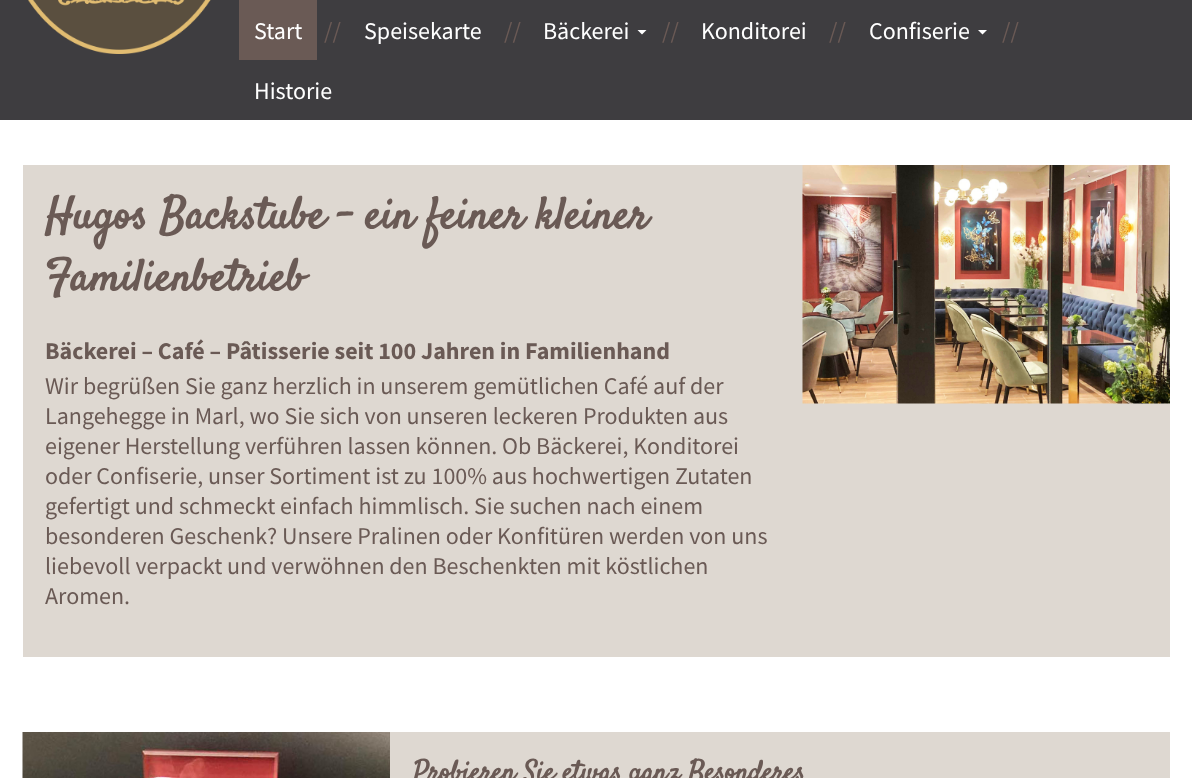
async function draw(canvas) {
  canvas.width = 1192;
  canvas.height = 778;
  const ctx = canvas.getContext('2d');
  ctx.miterLimit = 4;
  ctx.fontKerning = 'normal';
  function label(s, x, y, font, color) {
    ctx.font = font;
    ctx.fillStyle = color;
    ctx.fillText(s, x, y);
  }
  function rect(x, y, w, h, color) {
    ctx.fillStyle = color;
    ctx.fillRect(x, y, w, h);
  }
  async function image(src, x, y, w, h) {
    const img = new Image();
    img.src = src;
    await img.decode();
    ctx.drawImage(img, x, y, w, h);
  }
  let path;

  rect(0, 0, 1192, 778, '#fff');
  rect(0, 0, 1192, 120, '#3e3d40');
  await image('assets/img1.png', 28, 0, 183, 54);
  rect(239, 0, 78, 60, '#6a5a55');
  label('Start', 254, 39, '24px Source Sans Pro', '#fff');
  label('//', 324, 39, '24px Source Sans Pro', '#6a5a55');
  label('Speisekarte', 364, 39, '24px Source Sans Pro', '#fff');
  label('//', 504, 39, '24px Source Sans Pro', '#6a5a55');
  label('Bäckerei', 543, 39, '24px Source Sans Pro', '#fff');
  path = new Path2D('M637.5 30H646.5L642 34.5Z');
  ctx.fill(path);
  label('//', 662, 39, '24px Source Sans Pro', '#6a5a55');
  label('Konditorei', 701, 39, '24px Source Sans Pro', '#fff');
  label('//', 829, 39, '24px Source Sans Pro', '#6a5a55');
  label('Confiserie', 869, 39, '24px Source Sans Pro', '#fff');
  path = new Path2D('M978 30H987L982.5 34.5Z');
  ctx.fill(path);
  label('//', 1002, 39, '24px Source Sans Pro', '#6a5a55');
  label('Historie', 254, 99, '24px Source Sans Pro', '#fff');
  rect(23, 165, 1147, 492, '#ded8d1');
  label('Hugos Backstube - ein feiner kleiner', 45, 228, 'bold 44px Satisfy', '#6a5a55');
  label('Familienbetrieb', 45, 290, 'bold 44px Satisfy', '#6a5a55');
  label('Bäckerei – Café – Pâtisserie seit 100 Jahren in Familienhand', 45, 359, 'bold 24px Source Sans Pro', '#6a5a55');
  label('Wir begrüßen Sie ganz herzlich in unserem gemütlichen Café auf der', 45, 394, '24px Source Sans Pro', '#6a5a55');
  label('Langehegge in Marl, wo Sie sich von unseren leckeren Produkten aus', 45, 424, '24px Source Sans Pro', '#6a5a55');
  label('eigener Herstellung verführen lassen können. Ob Bäckerei, Konditorei', 45, 454, '24px Source Sans Pro', '#6a5a55');
  label('oder Confiserie, unser Sortiment ist zu 100% aus hochwertigen Zutaten', 45, 484, '24px Source Sans Pro', '#6a5a55');
  label('gefertigt und schmeckt einfach himmlisch. Sie suchen nach einem', 45, 514, '24px Source Sans Pro', '#6a5a55');
  label('besonderen Geschenk? Unsere Pralinen oder Konfitüren werden von uns', 45, 544, '24px Source Sans Pro', '#6a5a55');
  label('liebevoll verpackt und verwöhnen den Beschenkten mit köstlichen', 45, 574, '24px Source Sans Pro', '#6a5a55');
  label('Aromen.', 45, 604, '24px Source Sans Pro', '#6a5a55');
  await image('assets/img2.png', 802, 165, 368, 239);
  rect(390, 732, 780, 46, '#ded8d1');
  await image('assets/img3.png', 22, 732, 368, 46);
  label('Probieren Sie etwas ganz Besonderes', 413, 780, 'bold 28px Satisfy', '#6a5a55');
}

draw(document.querySelector('canvas'));
